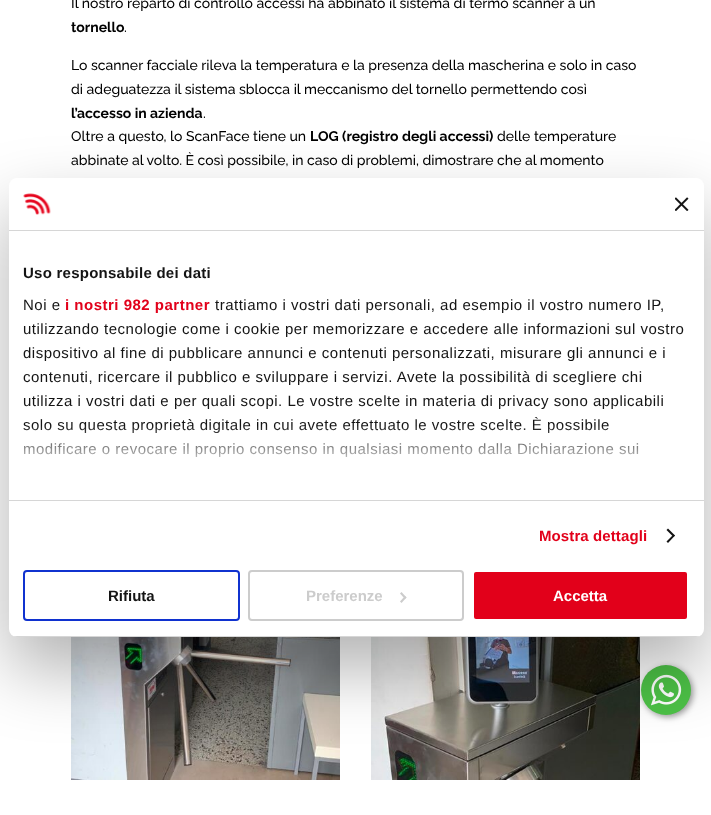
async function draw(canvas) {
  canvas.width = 711;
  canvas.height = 815;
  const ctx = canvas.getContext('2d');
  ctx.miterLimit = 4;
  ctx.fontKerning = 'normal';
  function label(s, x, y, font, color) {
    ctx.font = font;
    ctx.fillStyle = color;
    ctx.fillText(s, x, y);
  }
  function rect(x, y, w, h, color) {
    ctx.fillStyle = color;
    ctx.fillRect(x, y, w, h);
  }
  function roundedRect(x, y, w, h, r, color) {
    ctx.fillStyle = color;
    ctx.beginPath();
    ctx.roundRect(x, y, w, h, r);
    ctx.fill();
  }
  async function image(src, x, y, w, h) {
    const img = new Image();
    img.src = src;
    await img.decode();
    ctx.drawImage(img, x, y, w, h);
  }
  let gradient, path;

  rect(0, 0, 711, 815, '#fff');
  label('Il nostro reparto di controllo accessi ha abbinato il sistema di termo scanner a un', 71, 8, '100 14px Raleway', '#000');
  label('tornello', 71, 32, '100 14px "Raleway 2"', '#000');
  label('.', 124, 32, '100 14px Raleway', '#000');
  label('Lo scanner facciale rileva la temperatura e la presenza della mascherina e solo in caso', 71, 70, '100 14px Raleway', '#000');
  label('di adeguatezza il sistema sblocca il meccanismo del tornello permettendo così', 71, 94, '100 14px Raleway', '#000');
  label('l’accesso in azienda', 71, 118, '100 14px "Raleway 2"', '#000');
  label('.', 203, 118, '100 14px Raleway', '#000');
  label('Oltre a questo, lo ScanFace tiene un', 71, 141, '100 14px Raleway', '#000');
  label('LOG (registro degli accessi)', 310, 141, '100 14px "Raleway 2"', '#000');
  label('delle temperature', 497, 141, '100 14px Raleway', '#000');
  label('abbinate al volto. È così possibile, in caso di problemi, dimostrare che al momento', 71, 165, '100 14px Raleway', '#000');
  await image('assets/img1.png', 71, 637, 269, 143);
  await image('assets/img2.png', 371, 637, 269, 143);
  ctx.fillStyle = '#00000066';
  ctx.filter = 'blur(3px)';
  ctx.beginPath();
  ctx.roundRect(643, 667, 50, 50, 25);
  ctx.fill();
  ctx.filter = 'none';
  ctx.fillStyle = '#4dc247';
  ctx.beginPath();
  ctx.arc(666, 690, 25, 0, 2 * Math.PI);
  ctx.fill();
  await image('assets/img5.png', 651, 674, 31, 32);
  ctx.fillStyle = '#0000004d';
  ctx.filter = 'blur(34px)';
  ctx.beginPath();
  ctx.roundRect(9, 210, 695, 459, 8);
  ctx.fill();
  ctx.filter = 'none';
  roundedRect(9, 178, 695, 459, 8, '#fff');
  rect(9, 230, 695, 1, '#d6d6d6');
  await image('assets/img3.png', 23, 193, 28, 22);
  await image('assets/img4.png', 675, 197, 14, 14);
  rect(9, 500, 695, 1, '#d6d6d6');
  ctx.letterSpacing = '0.25px';
  label('Uso responsabile dei dati', 23, 278, 'bold 15px Liberation Sans', '#141414');
  ctx.letterSpacing = '0.5px';
  label('Noi e', 23, 310, '15px Liberation Sans', '#141414');
  label('i nostri 982 partner', 65, 310, 'bold 15px Liberation Sans', '#e2001a');
  label('trattiamo i vostri dati personali, ad esempio il vostro numero IP,', 215, 310, '15px Liberation Sans', '#141414');
  label('utilizzando tecnologie come i cookie per memorizzare e accedere alle informazioni sul vostro', 23, 334, '15px Liberation Sans', '#141414');
  label('dispositivo al fine di pubblicare annunci e contenuti personalizzati, misurare gli annunci e i', 23, 358, '15px Liberation Sans', '#141414');
  label('contenuti, ricercare il pubblico e sviluppare i servizi. Avete la possibilità di scegliere chi', 23, 382, '15px Liberation Sans', '#141414');
  label('utilizza i vostri dati e per quali scopi. Le vostre scelte in materia di privacy sono applicabili', 23, 406, '15px Liberation Sans', '#141414');
  label('solo su questa proprietà digitale in cui avete effettuato le vostre scelte. È possibile', 23, 430, '15px Liberation Sans', '#141414');
  label('modificare o revocare il proprio consenso in qualsiasi momento dalla Dichiarazione sui', 23, 454, '15px Liberation Sans', '#141414');
  gradient = ctx.createLinearGradient(350, 500, 350, 425);
  gradient.addColorStop(0, '#fff');
  gradient.addColorStop(0.5, '#ffffffcc');
  gradient.addColorStop(1, '#ffffff00');
  ctx.fillStyle = gradient;
  ctx.fillRect(23, 426, 616, 32);
  ctx.letterSpacing = '0.1px';
  label('Mostra dettagli', 539, 541, 'bold 15px Liberation Sans', '#e2001a');
  ctx.fillStyle = '#141414';
  path = new Path2D('M668 528.5L675 535.5L673.5 537L666.5 530Z');
  ctx.fill(path);
  path = new Path2D('M673.5 534.5L675 535.5L668 543L666.5 541.5Z');
  ctx.fill(path);
  ctx.save();
  ctx.beginPath();
  ctx.roundRect(9, 178, 695, 459, 8);
  ctx.clip();
  rect(9, 636, 695, 1, '#d6d6d6');
  ctx.restore();
  ctx.beginPath();
  ctx.roundRect(24, 571, 215, 49, 3);
  ctx.strokeStyle = '#1032cf';
  ctx.lineWidth = 2;
  ctx.stroke();
  ctx.letterSpacing = '0px';
  label('Rifiuta', 108, 601, 'bold 15px Liberation Sans', '#141414');
  ctx.beginPath();
  ctx.roundRect(249, 571, 214, 49, 3);
  ctx.strokeStyle = '#ccc';
  ctx.stroke();
  label('Preferenze', 306, 601, 'bold 15px Liberation Sans', '#ccc');
  path = new Path2D('M401.5 592L406.5 597.5L405 599L400 593.5Z');
  ctx.fill(path);
  path = new Path2D('M405 596L406.5 597.5L401.5 603L400 601.5Z');
  ctx.fill(path);
  ctx.fillStyle = '#e2001a';
  ctx.beginPath();
  ctx.roundRect(473, 571, 215, 49, 3);
  ctx.fill();
  ctx.strokeStyle = '#fff';
  ctx.stroke();
  label('Accetta', 553, 601, 'bold 15px Liberation Sans', '#fff');
}

draw(document.querySelector('canvas'));
